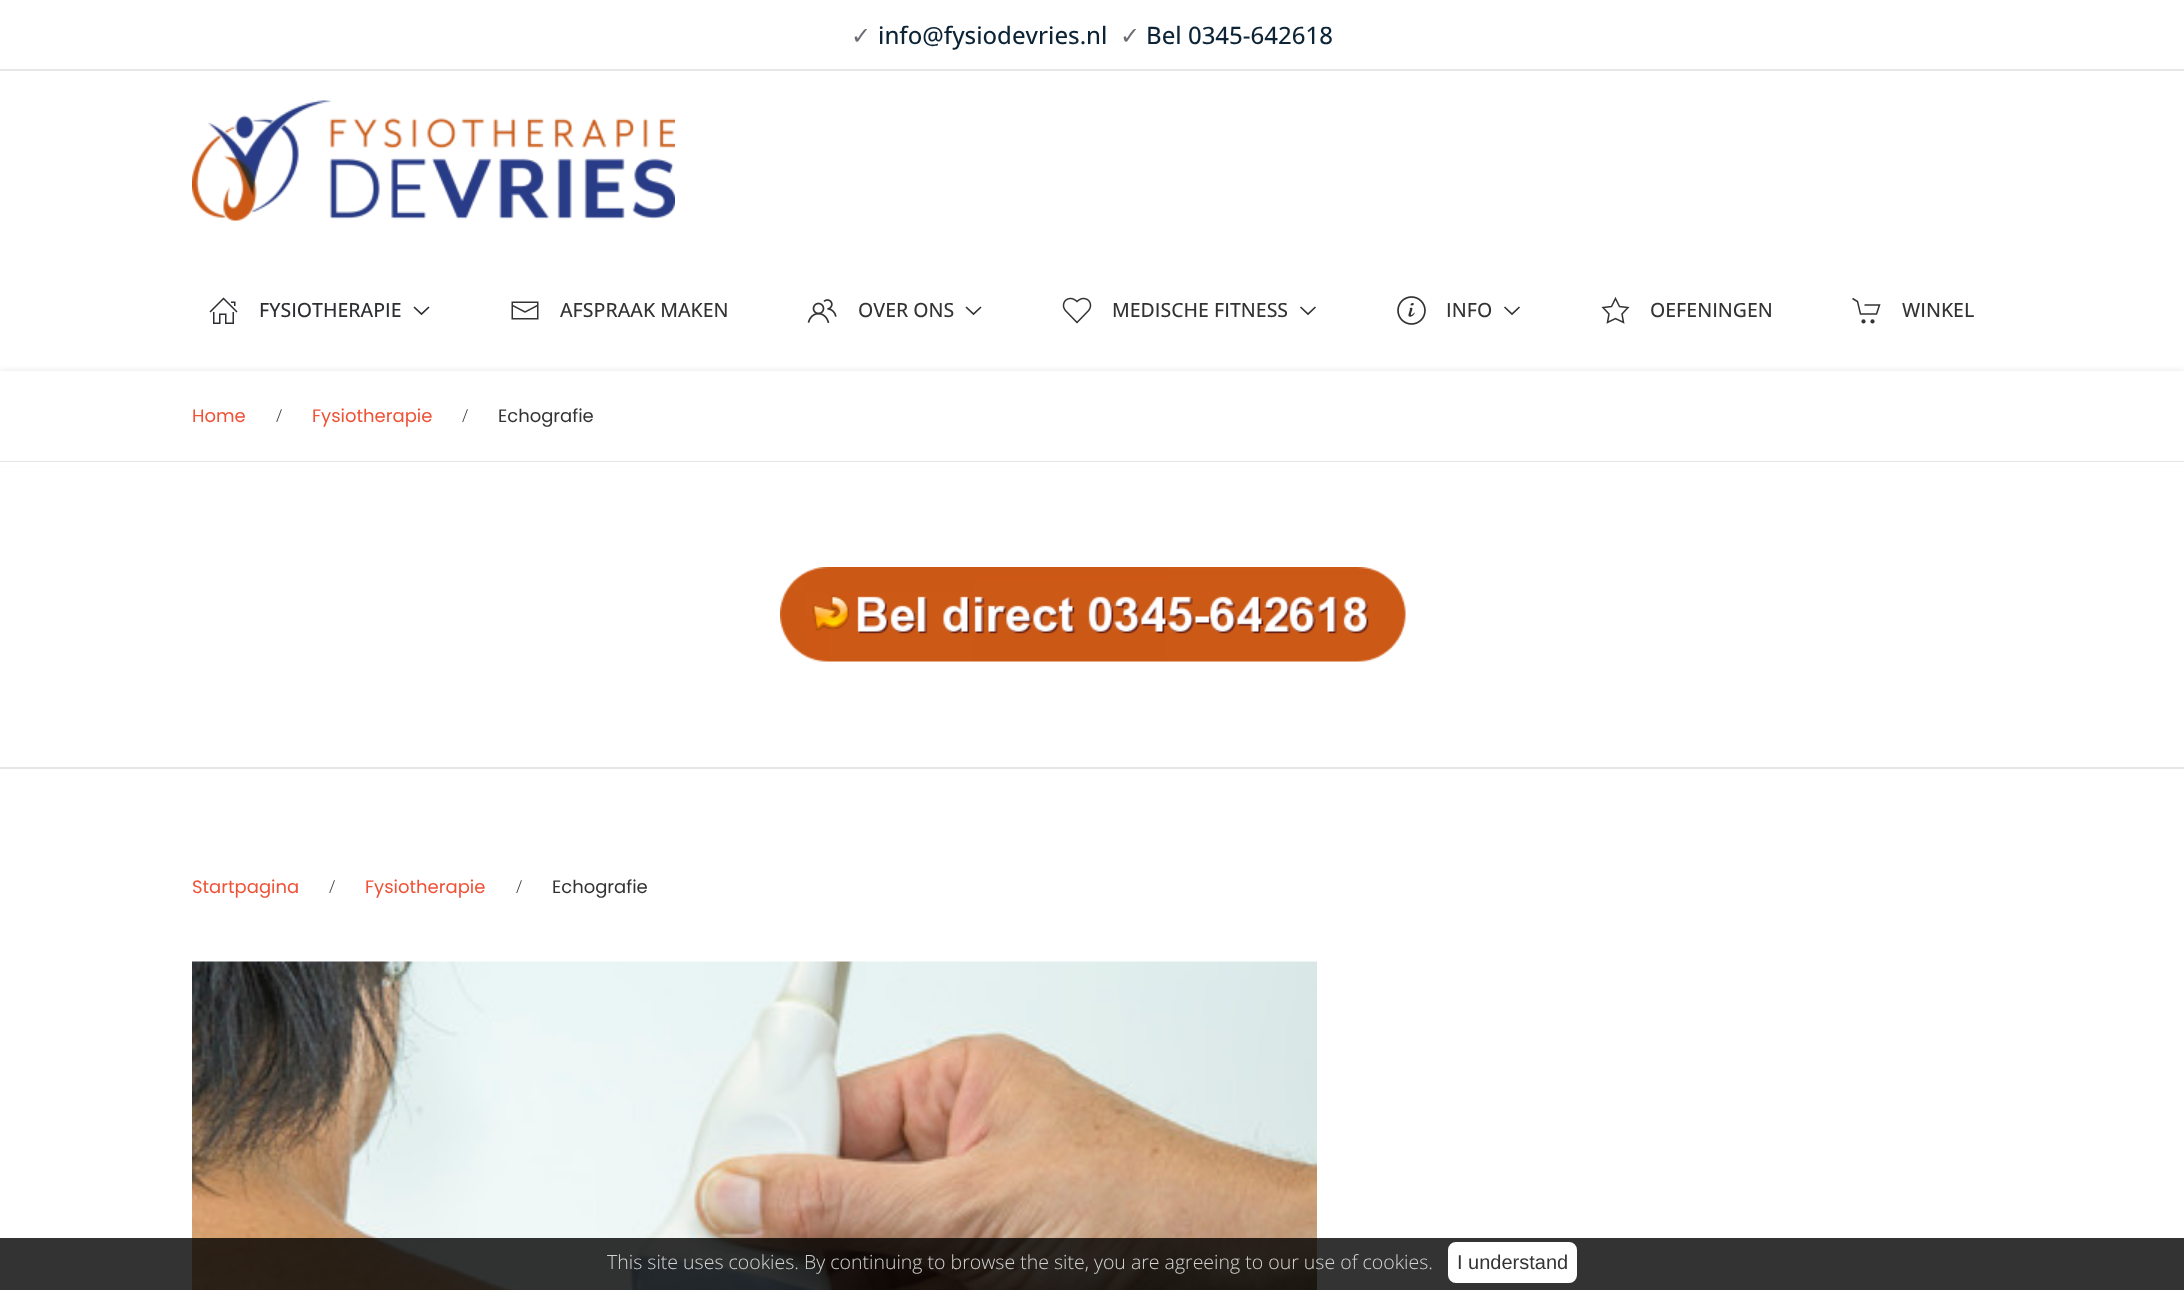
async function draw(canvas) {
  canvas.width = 2184;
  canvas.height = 1290;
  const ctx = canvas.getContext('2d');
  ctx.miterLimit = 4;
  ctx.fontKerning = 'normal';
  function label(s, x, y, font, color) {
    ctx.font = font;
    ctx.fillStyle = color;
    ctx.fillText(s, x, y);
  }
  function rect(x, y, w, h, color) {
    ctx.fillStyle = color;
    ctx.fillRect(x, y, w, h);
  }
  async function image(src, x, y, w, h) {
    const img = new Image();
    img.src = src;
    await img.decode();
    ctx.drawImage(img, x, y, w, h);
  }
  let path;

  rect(0, 0, 2184, 1290, '#fff');
  rect(0, 69, 2184, 2, '#e6e6e6');
  label('✓', 851, 44, '24px DejaVu Sans', '#6c6d74');
  label('info@fysiodevries.nl', 878, 44, '500 24px Open Sans', '#0c2436');
  label('✓', 1120, 44, '24px DejaVu Sans', '#6c6d74');
  label('Bel 0345-642618', 1146, 44, '500 24px Open Sans', '#0c2436');
  await image('assets/img1.png', 192, 100, 483, 121);
  await image('assets/img2.png', 209, 297, 29, 27);
  label('FYSIOTHERAPIE', 259, 317, '500 19.5px Open Sans', '#2d2e33');
  path = new Path2D('M414 307L421.5 314L429 307');
  ctx.strokeStyle = '#2d2e33';
  ctx.lineWidth = 1.7;
  ctx.stroke(path);
  await image('assets/img3.png', 511, 301, 28, 19);
  label('AFSPRAAK MAKEN', 560, 317, '500 19.5px Open Sans', '#333');
  await image('assets/img4.png', 807, 299, 30, 25);
  label('OVER ONS', 858, 317, '500 19.5px Open Sans', '#333');
  path = new Path2D('M966 307L973.5 314L981 307');
  ctx.strokeStyle = '#333';
  ctx.stroke(path);
  await image('assets/img5.png', 1062, 297, 30, 27);
  label('MEDISCHE FITNESS', 1112, 317, '500 19.5px Open Sans', '#333');
  path = new Path2D('M1300.5 307L1308 314L1315.5 307');
  ctx.stroke(path);
  await image('assets/img6.png', 1397, 296, 29, 29);
  label('INFO', 1446, 317, '500 19.5px Open Sans', '#333');
  path = new Path2D('M1504.5 307L1512 314L1519.5 307');
  ctx.stroke(path);
  path = new Path2D('M1615.5 298.5L1619.5 306.5L1628 307.5L1622 314L1623.5 322.5L1615.5 318.5L1607.5 322.5L1609 314L1603 307.5L1611.5 306.5Z');
  ctx.lineWidth = 1.5;
  ctx.stroke(path);
  label('OEFENINGEN', 1650, 317, '500 19.5px Open Sans', '#333');
  path = new Path2D('M1852.5 298.5L1857.5 301.5L1860.5 314H1876.5L1879.5 305H1864.5');
  ctx.stroke(path);
  ctx.beginPath();
  ctx.arc(1863.5, 321.4, 2.1, 0, 2 * Math.PI);
  ctx.fill();
  ctx.beginPath();
  ctx.arc(1872.5, 321.4, 2.1, 0, 2 * Math.PI);
  ctx.fill();
  label('WINKEL', 1902, 317, '500 19.5px Open Sans', '#333');
  ctx.fillStyle = '#0000001a';
  ctx.filter = 'blur(3px)';
  ctx.beginPath();
  ctx.rect(0, 371, 2184, 91);
  ctx.fill();
  ctx.filter = 'none';
  rect(0, 371, 2184, 95, '#fff');
  rect(0, 461, 2184, 1, '#0000001a');
  label('Home', 192, 422, '18px Poppins', '#ef5236');
  label('/', 276, 422, '300 18px Open Sans', '#333');
  label('Fysiotherapie', 312, 422, '18px Poppins', '#ef5236');
  label('/', 462, 422, '300 18px Open Sans', '#333');
  label('Echografie', 498, 422, '18px Poppins', '#333');
  rect(0, 767, 2184, 2, '#e6e6e6');
  await image('assets/img7.png', 780, 567, 626, 95);
  label('Startpagina', 192, 893, '18px Poppins', '#ef5236');
  label('/', 329, 893, '300 18px Open Sans', '#333');
  label('Fysiotherapie', 365, 893, '18px Poppins', '#ef5236');
  label('/', 516, 893, '300 18px Open Sans', '#333');
  label('Echografie', 552, 893, '18px Poppins', '#333');
  await image('assets/img8.png', 192, 961, 1125, 329);
  rect(0, 1238, 2184, 52, '#000000cc');
  label('This site uses cookies. By continuing to browse the site, you are agreeing to our use of cookies.', 607, 1269, '300 19.5px Open Sans', '#d3d3d2');
  ctx.fillStyle = '#fff';
  ctx.beginPath();
  ctx.roundRect(1449, 1243, 127, 39, 7);
  ctx.fill();
  ctx.strokeStyle = '#fff';
  ctx.lineWidth = 2;
  ctx.stroke();
  label('I understand', 1457, 1269, '20px Liberation Sans', '#333');
}

draw(document.querySelector('canvas'));
